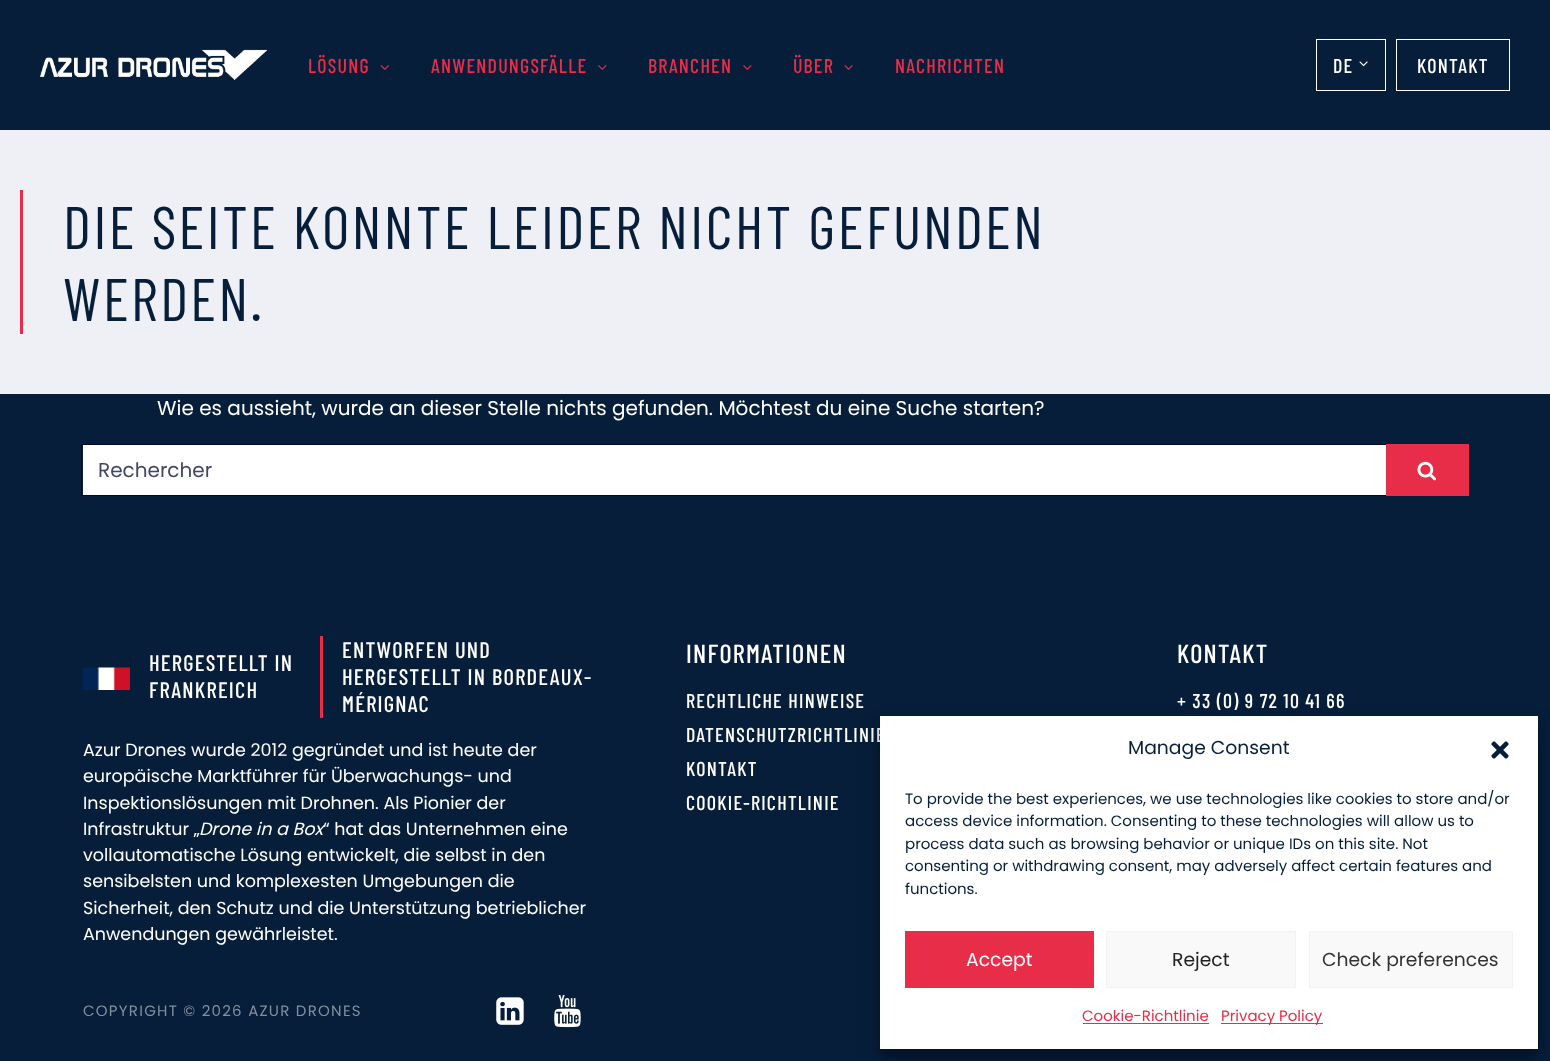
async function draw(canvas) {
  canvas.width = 1550;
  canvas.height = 1061;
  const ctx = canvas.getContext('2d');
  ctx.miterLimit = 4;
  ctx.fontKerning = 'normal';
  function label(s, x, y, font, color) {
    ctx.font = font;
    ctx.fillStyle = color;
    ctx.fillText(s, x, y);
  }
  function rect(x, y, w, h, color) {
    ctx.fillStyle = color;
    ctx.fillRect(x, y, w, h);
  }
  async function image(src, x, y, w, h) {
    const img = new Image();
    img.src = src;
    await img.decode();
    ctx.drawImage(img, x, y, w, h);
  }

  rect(0, 0, 1550, 1061, '#071e3b');
  await image('assets/img1.png', 40, 49, 228, 31);
  ctx.letterSpacing = '1.25px';
  label('LÖSUNG', 308, 73, '500 20px Barlow Condensed', '#e72d47');
  await image('assets/img2.png', 380, 65, 9, 5);
  label('ANWENDUNGSFÄLLE', 431, 73, '500 20px Barlow Condensed', '#e72d47');
  await image('assets/img3.png', 598, 65, 9, 5);
  label('BRANCHEN', 648, 73, '500 20px Barlow Condensed', '#e72d47');
  await image('assets/img3.png', 743, 65, 9, 5);
  label('ÜBER', 793, 73, '500 20px Barlow Condensed', '#e72d47');
  await image('assets/img4.png', 844, 65, 9, 5);
  label('NACHRICHTEN', 895, 73, '500 20px Barlow Condensed', '#e72d47');
  ctx.strokeStyle = '#fff';
  ctx.strokeRect(1316.5, 39.5, 69, 51);
  label('DE', 1333, 73, '500 20px Barlow Condensed', '#fff');
  await image('assets/img5.png', 1359, 61, 9, 6);
  ctx.strokeRect(1396.5, 39.5, 113, 51);
  label('KONTAKT', 1417, 73, '500 20px Barlow Condensed', '#fff');
  rect(0, 130, 1550, 264, '#eef0f5');
  rect(20, 190, 3, 144, '#e72d47');
  ctx.letterSpacing = '2.5px';
  label('DIE SEITE KONNTE LEIDER NICHT GEFUNDEN', 63, 249, '60px Barlow Condensed', '#071e3b');
  label('WERDEN.', 63, 321, '60px Barlow Condensed', '#071e3b');
  ctx.letterSpacing = '0px';
  label('Wie es aussieht, wurde an dieser Stelle nichts gefunden. Möchtest du eine Suche starten?', 157, 415, '20px Poppins', '#fff');
  rect(83, 445, 1303, 50, '#fff');
  ctx.strokeStyle = '#010933';
  ctx.strokeRect(81.5, 444.5, 1306, 51);
  label('Rechercher', 98, 477, '20px Poppins', '#414766');
  rect(1386, 444, 83, 52, '#e72d47');
  await image('assets/img6.png', 1417, 461, 19, 20);
  await image('assets/img7.png', 82, 667, 48, 23);
  ctx.letterSpacing = '1.25px';
  label('HERGESTELLT IN', 149, 671, '500 22.5px Barlow Condensed', '#fff');
  label('FRANKREICH', 149, 698, '500 22.5px Barlow Condensed', '#fff');
  rect(320, 636, 3, 82, '#e72d47');
  label('ENTWORFEN UND', 342, 658, '500 22.5px Barlow Condensed', '#fff');
  label('HERGESTELLT IN BORDEAUX-', 342, 685, '500 22.5px Barlow Condensed', '#fff');
  label('MÉRIGNAC', 342, 712, '500 22.5px Barlow Condensed', '#fff');
  ctx.letterSpacing = '0px';
  label('Azur Drones wurde 2012 gegründet und ist heute der', 83, 756, '17.5px Poppins', '#fff');
  label('europäische Marktführer für Überwachungs- und', 83, 782, '17.5px Poppins', '#fff');
  label('Inspektionslösungen mit Drohnen. Als Pionier der', 83, 809, '17.5px Poppins', '#fff');
  label('Infrastruktur „', 83, 835, '17.5px Poppins', '#fff');
  label('Drone in a Box', 199, 835, 'italic 17.5px Poppins', '#fff');
  label('“ hat das Unternehmen eine', 323, 835, '17.5px Poppins', '#fff');
  label('vollautomatische Lösung entwickelt, die selbst in den', 83, 861, '17.5px Poppins', '#fff');
  label('sensibelsten und komplexesten Umgebungen die', 83, 887, '17.5px Poppins', '#fff');
  label('Sicherheit, den Schutz und die Unterstützung betrieblicher', 83, 914, '17.5px Poppins', '#fff');
  label('Anwendungen gewährleistet.', 83, 940, '17.5px Poppins', '#fff');
  ctx.letterSpacing = '1.25px';
  label('INFORMATIONEN', 686, 663, '500 26.25px Barlow Condensed', '#fff');
  label('RECHTLICHE HINWEISE', 686, 708, '500 20px Barlow Condensed', '#fff');
  label('DATENSCHUTZRICHTLINIE', 686, 742, '500 20px Barlow Condensed', '#fff');
  label('KONTAKT', 686, 776, '500 20px Barlow Condensed', '#fff');
  label('COOKIE-RICHTLINIE', 686, 810, '500 20px Barlow Condensed', '#fff');
  label('KONTAKT', 1177, 663, '500 26.25px Barlow Condensed', '#fff');
  label('+ 33 (0) 9 72 10 41 66', 1177, 708, '500 20px Barlow Condensed', '#fff');
  label('COPYRIGHT © 2026 AZUR DRONES', 83, 1016, '15px Poppins', '#838f9d');
  await image('assets/img8.png', 496, 997, 28, 28);
  await image('assets/img9.png', 554, 995, 27, 33);
  ctx.fillStyle = '#0000003b';
  ctx.filter = 'blur(4px)';
  ctx.beginPath();
  ctx.rect(880, 724, 658, 332);
  ctx.fill();
  ctx.filter = 'none';
  ctx.fillStyle = '#00000030';
  ctx.filter = 'blur(12.5px)';
  ctx.beginPath();
  ctx.rect(880, 729, 658, 332);
  ctx.fill();
  ctx.filter = 'none';
  rect(880, 716, 658, 333, '#fff');
  ctx.letterSpacing = '0px';
  label('Manage Consent', 1128, 754, '18.75px Poppins', '#071e3b');
  await image('assets/img10.png', 1491, 741, 18, 18);
  label('To provide the best experiences, we use technologies like cookies to store and/or', 905, 804, '15px Poppins', '#071e3b');
  label('access device information. Consenting to these technologies will allow us to', 905, 826, '15px Poppins', '#071e3b');
  label('process data such as browsing behavior or unique IDs on this site. Not', 905, 849, '15px Poppins', '#071e3b');
  label('consenting or withdrawing consent, may adversely affect certain features and', 905, 871, '15px Poppins', '#071e3b');
  label('functions.', 905, 894, '15px Poppins', '#071e3b');
  rect(905, 931, 189, 57, '#e72d47');
  label('Accept', 966, 966, '18.75px Poppins', '#fff');
  ctx.fillStyle = '#f9f9f9';
  ctx.beginPath();
  ctx.rect(1106.5, 931.5, 189, 56);
  ctx.fill();
  ctx.strokeStyle = '#f2f2f2';
  ctx.stroke();
  label('Reject', 1172, 966, '18.75px Poppins', '#222');
  ctx.fillStyle = '#f9f9f9';
  ctx.beginPath();
  ctx.rect(1309.5, 931.5, 203, 56);
  ctx.fill();
  ctx.stroke();
  label('Check preferences', 1322, 966, '18.75px Poppins', '#333');
  label('Cookie-Richtlinie', 1082, 1021, '15px Poppins', '#e72d47');
  rect(1083, 1023, 126, 1, '#e72d47');
  rect(1221, 1023, 102, 1, '#e72d47');
  label('Privacy Policy', 1221, 1021, '15px Poppins', '#e72d47');
}

draw(document.querySelector('canvas'));
